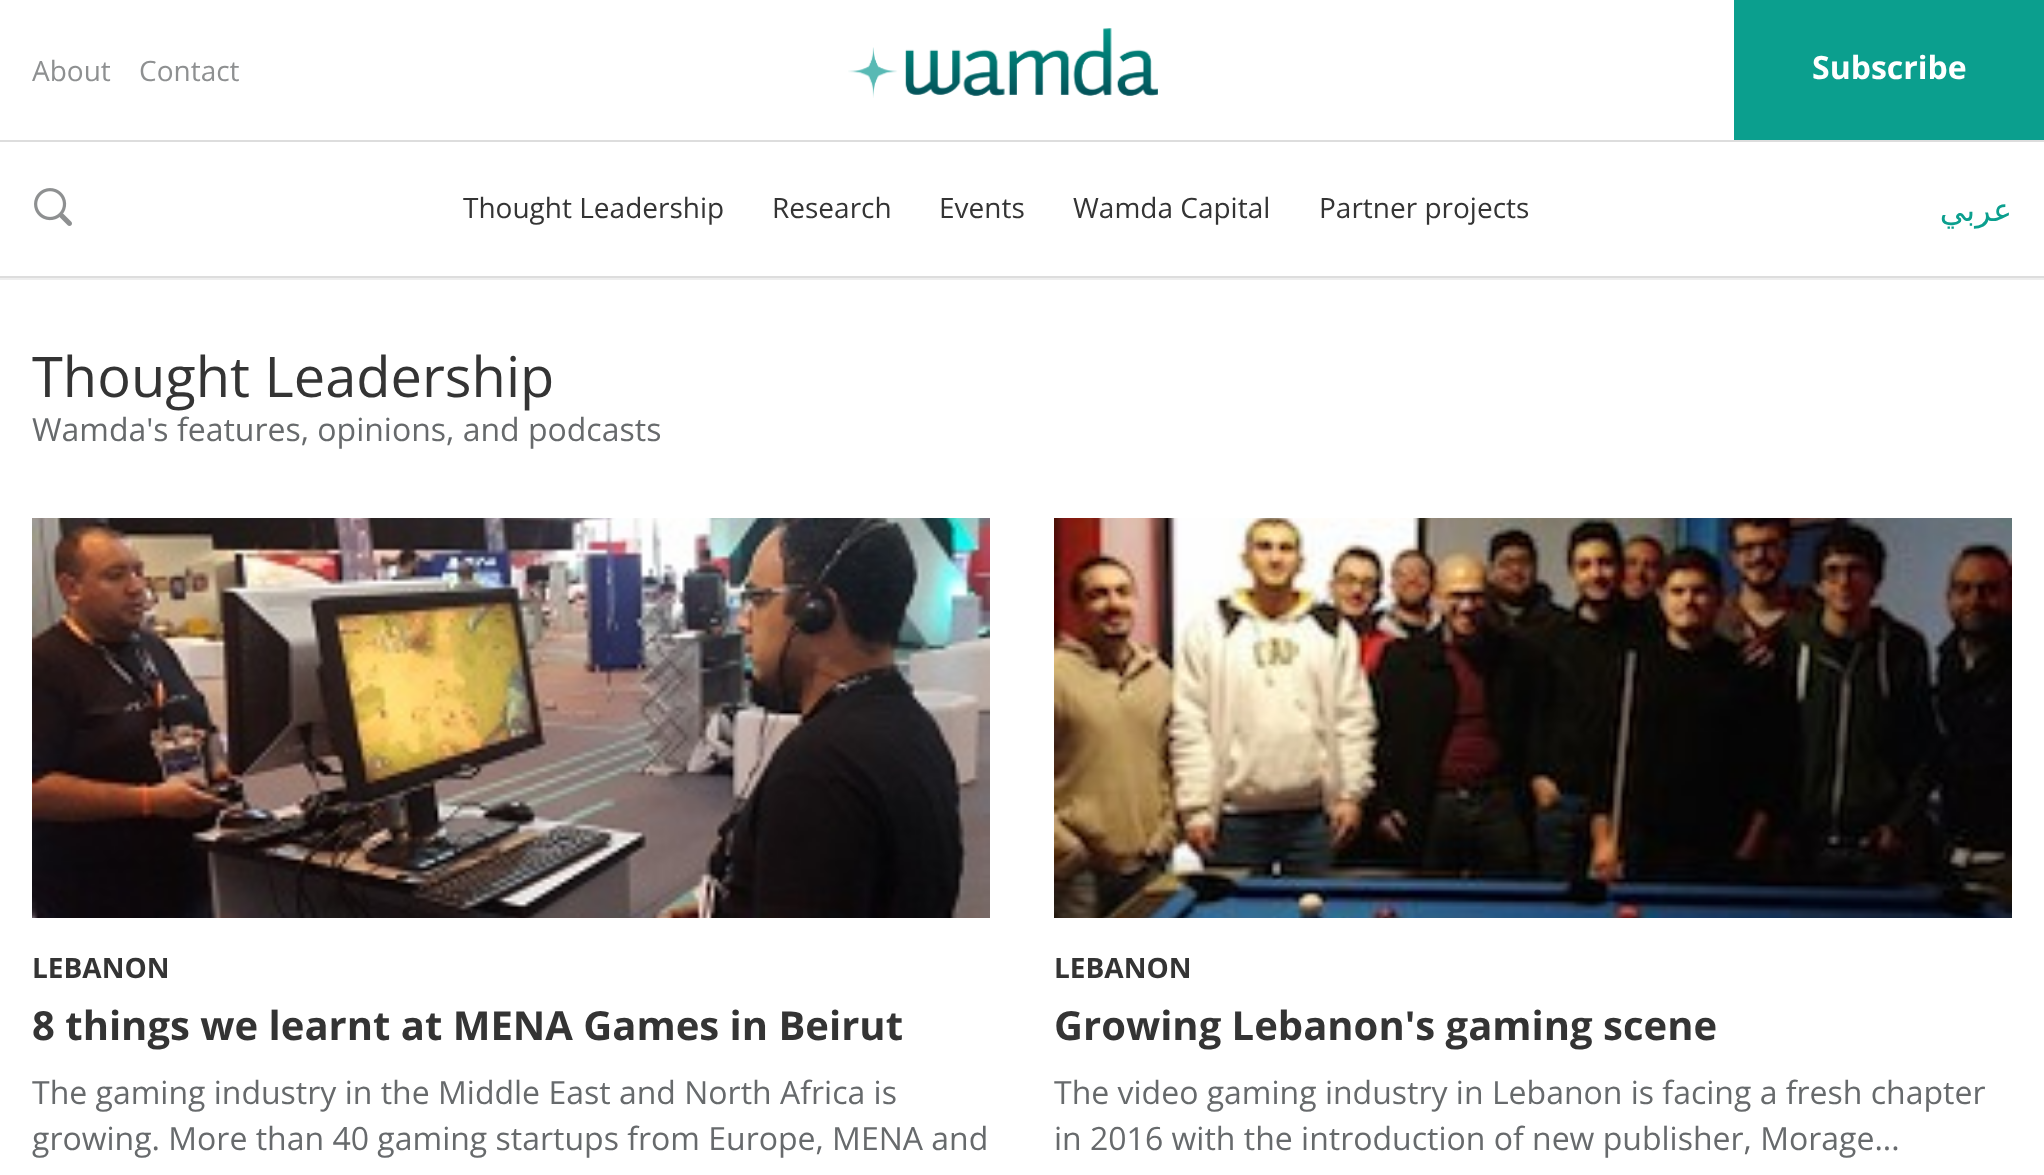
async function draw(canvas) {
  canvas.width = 2044;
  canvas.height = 1175;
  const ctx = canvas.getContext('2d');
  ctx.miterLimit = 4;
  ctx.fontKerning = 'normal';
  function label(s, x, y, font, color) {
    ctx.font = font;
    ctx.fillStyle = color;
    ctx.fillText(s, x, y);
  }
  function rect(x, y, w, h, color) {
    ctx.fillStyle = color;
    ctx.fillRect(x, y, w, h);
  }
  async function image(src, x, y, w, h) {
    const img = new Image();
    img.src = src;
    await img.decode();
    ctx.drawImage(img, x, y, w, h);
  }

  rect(0, 0, 2044, 1175, '#fff');
  rect(0, 278, 2044, 2, '#eee');
  label('About', 32, 81, '28px Open Sans', '#8e9091');
  label('Contact', 139, 81, '28px Open Sans', '#8e9091');
  await image('assets/img1.png', 848, 28, 310, 70);
  rect(1734, 0, 310, 140, '#0b9f8e');
  label('Subscribe', 1812, 79, 'bold 32px Open Sans', '#fff');
  rect(0, 140, 2044, 2, '#ddd');
  rect(0, 276, 2044, 2, '#ddd');
  await image('assets/img2.png', 34, 188, 38, 38);
  label('Thought Leadership', 463, 218, '28px Open Sans', '#343434');
  label('Research', 772, 218, '28px Open Sans', '#343434');
  label('Events', 939, 218, '28px Open Sans', '#343434');
  label('Wamda Capital', 1073, 218, '28px Open Sans', '#343434');
  label('Partner projects', 1319, 218, '28px Open Sans', '#343434');
  ctx.direction = 'rtl';
  label('عربي', 2012, 221, '32px DejaVu Sans', '#0b9f8e');
  ctx.direction = 'ltr';
  label('Thought Leadership', 32, 397, '56px Open Sans', '#343434');
  label('Wamda\'s features, opinions, and podcasts', 32, 441, '32px Open Sans', '#676a6c');
  await image('assets/img3.png', 32, 518, 958, 400);
  label('LEBANON', 32, 978, 'bold 28px Open Sans', '#343434');
  label('8 things we learnt at MENA Games in Beirut', 32, 1040, 'bold 40px Open Sans', '#343434');
  label('The gaming industry in the Middle East and North Africa is', 32, 1104, '32px Open Sans', '#676a6c');
  label('growing. More than 40 gaming startups from Europe, MENA and', 32, 1150, '32px Open Sans', '#676a6c');
  await image('assets/img4.png', 1054, 518, 958, 400);
  label('LEBANON', 1054, 978, 'bold 28px Open Sans', '#343434');
  label('Growing Lebanon\'s gaming scene', 1054, 1040, 'bold 40px Open Sans', '#343434');
  label('The video gaming industry in Lebanon is facing a fresh chapter', 1054, 1104, '32px Open Sans', '#676a6c');
  label('in 2016 with the introduction of new publisher, Morage...', 1054, 1150, '32px Open Sans', '#676a6c');
}

draw(document.querySelector('canvas'));
